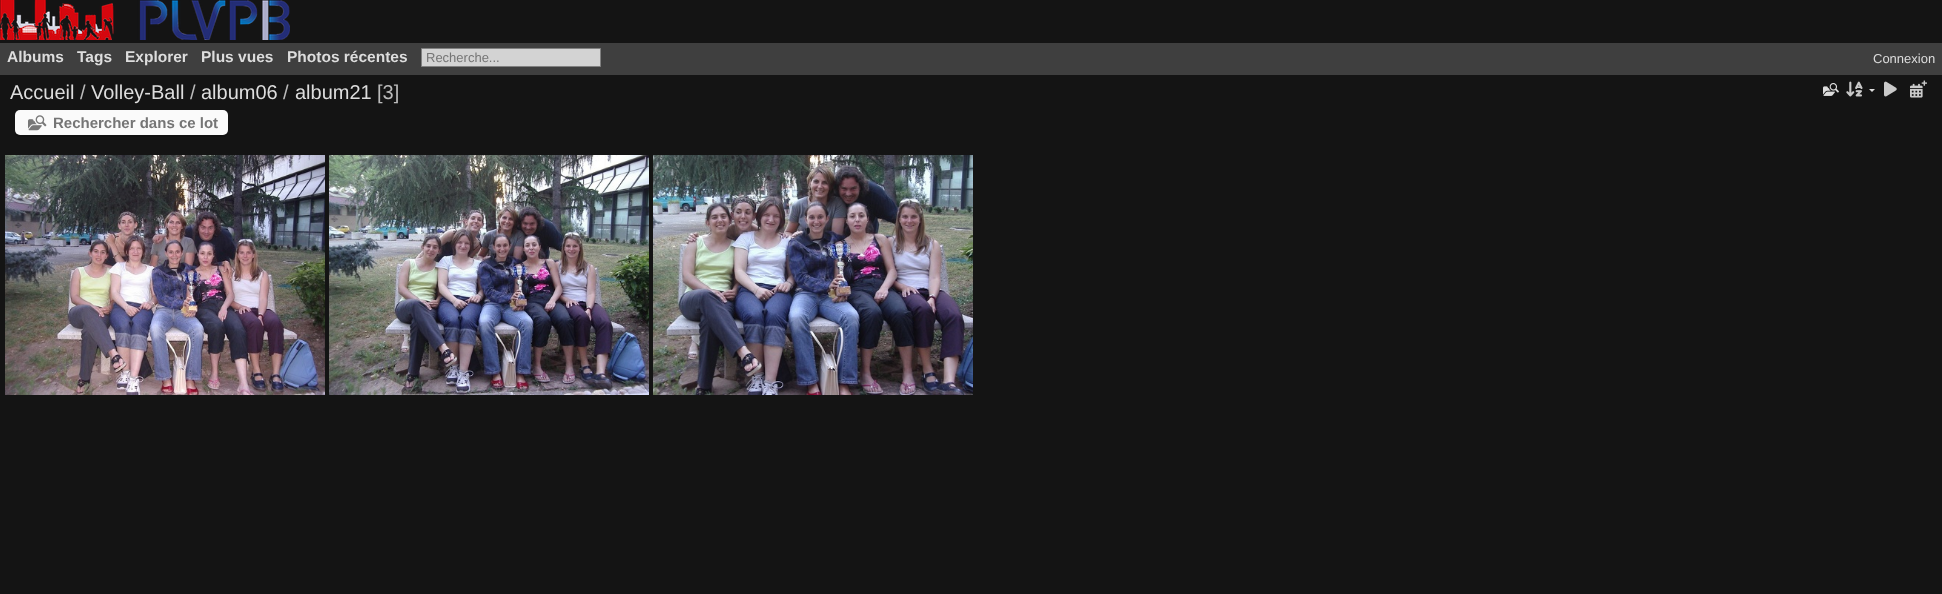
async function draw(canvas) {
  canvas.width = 1942;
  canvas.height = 594;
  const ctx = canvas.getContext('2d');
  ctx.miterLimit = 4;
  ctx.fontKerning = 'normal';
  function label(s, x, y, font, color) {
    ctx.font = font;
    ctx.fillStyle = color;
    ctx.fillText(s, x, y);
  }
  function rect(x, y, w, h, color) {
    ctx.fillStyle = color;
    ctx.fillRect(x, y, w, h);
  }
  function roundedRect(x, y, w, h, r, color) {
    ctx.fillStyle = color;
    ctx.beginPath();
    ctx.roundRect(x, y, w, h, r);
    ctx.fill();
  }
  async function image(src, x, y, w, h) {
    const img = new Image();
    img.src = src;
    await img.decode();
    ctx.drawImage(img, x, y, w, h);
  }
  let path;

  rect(0, 0, 1942, 594, '#141414');
  await image('assets/img1.png', 0, 0, 290, 40);
  rect(0, 43, 1942, 32, '#3f3f3f');
  label('Albums', 7, 62, 'bold 15.5px Liberation Sans', '#ddd');
  label('Tags', 77, 62, 'bold 15.5px Liberation Sans', '#ddd');
  label('Explorer', 125, 62, 'bold 15.5px Liberation Sans', '#ddd');
  label('Plus vues', 201, 62, 'bold 15.5px Liberation Sans', '#ddd');
  label('Photos récentes', 287, 62, 'bold 15.5px Liberation Sans', '#ddd');
  ctx.fillStyle = '#d3d3d3';
  ctx.beginPath();
  ctx.rect(421.5, 48.5, 179, 18);
  ctx.fill();
  ctx.strokeStyle = '#808080';
  ctx.stroke();
  label('Recherche...', 426, 62, '13px Liberation Sans', '#757575');
  label('Connexion', 1873, 63, '13px Liberation Sans', '#ddd');
  label('Accueil', 10, 99, '20px Liberation Sans', '#ddd');
  label('/', 80, 99, '20px Liberation Sans', '#bbb');
  label('Volley-Ball', 91, 99, '20px Liberation Sans', '#ddd');
  label('/', 190, 99, '20px Liberation Sans', '#bbb');
  label('album06', 201, 99, '20px Liberation Sans', '#ddd');
  label('/', 283, 99, '20px Liberation Sans', '#bbb');
  label('album21', 295, 99, '20px Liberation Sans', '#ddd');
  label('[3]', 377, 99, '20px Liberation Sans', '#bbb');
  await image('assets/img2.png', 1823, 83, 16, 13);
  await image('assets/img3.png', 1846, 81, 17, 16);
  ctx.fillStyle = '#ddd';
  path = new Path2D('M1869 89H1875L1872 92Z');
  ctx.fill(path);
  await image('assets/img4.png', 1884, 81, 13, 16);
  await image('assets/img5.png', 1910, 80, 17, 18);
  ctx.fillStyle = '#111';
  path = new Path2D('M15 130V132C15 135 17 137 20 137H223C226 137 228 135 228 132V130C228 133 226 135 223 135H20C17 135 15 133 15 130Z');
  ctx.fill(path);
  roundedRect(15, 110, 213, 25, 5, '#fafafa');
  await image('assets/img6.png', 28, 115, 19, 16);
  label('Rechercher dans ce lot', 53, 128, 'bold 15px Liberation Sans', '#757575');
  await image('assets/img7.png', 5, 155, 320, 240);
  await image('assets/img8.png', 329, 155, 320, 240);
  await image('assets/img9.png', 653, 155, 320, 240);
}

draw(document.querySelector('canvas'));
